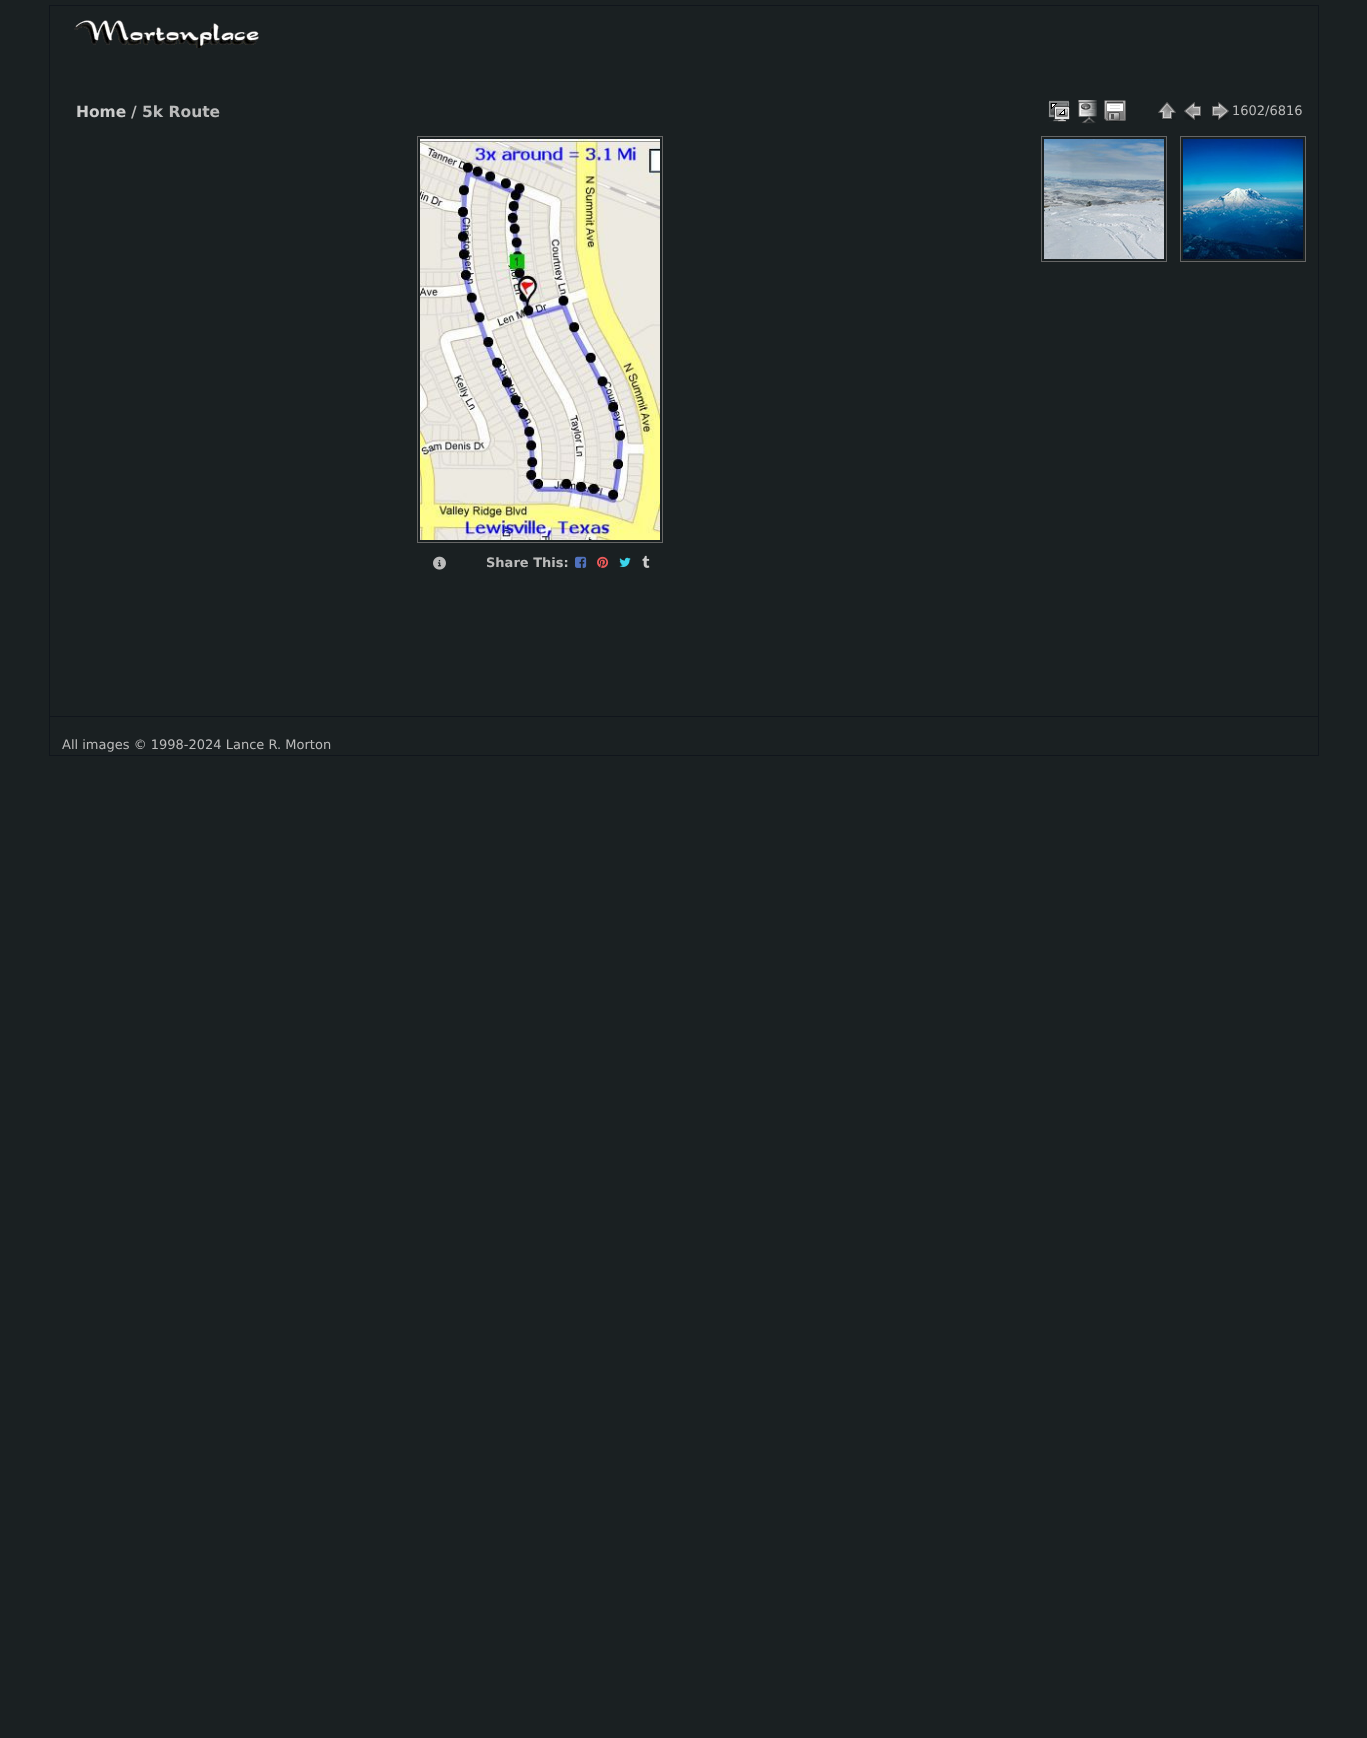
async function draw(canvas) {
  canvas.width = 1367;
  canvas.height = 1738;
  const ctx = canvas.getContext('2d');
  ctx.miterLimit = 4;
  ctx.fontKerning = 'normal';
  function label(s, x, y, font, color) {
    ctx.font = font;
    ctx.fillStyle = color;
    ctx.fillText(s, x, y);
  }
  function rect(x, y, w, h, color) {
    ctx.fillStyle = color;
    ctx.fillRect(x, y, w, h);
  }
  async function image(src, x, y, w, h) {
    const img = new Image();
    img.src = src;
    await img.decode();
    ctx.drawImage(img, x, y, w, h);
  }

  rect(0, 0, 1367, 1738, '#1a2022');
  ctx.strokeStyle = '#10151c';
  ctx.strokeRect(49.5, 5.5, 1269, 750);
  await image('assets/img1.png', 74, 20, 185, 28);
  label('Home', 76, 117, 'bold 15.5px DejaVu Sans', '#ccc');
  label('/ 5k Route', 131, 117, 'bold 15.5px DejaVu Sans', '#bbb');
  await image('assets/img2.png', 1048, 100, 22, 22);
  await image('assets/img3.png', 1078, 100, 19, 24);
  await image('assets/img4.png', 1104, 100, 22, 22);
  await image('assets/img5.png', 1158, 102, 18, 18);
  await image('assets/img6.png', 1184, 102, 17, 18);
  await image('assets/img7.png', 1212, 102, 17, 18);
  label('1602/6816', 1232, 115, '13px DejaVu Sans', '#bbb');
  ctx.strokeStyle = '#666';
  ctx.strokeRect(417.5, 136.5, 245, 406);
  ctx.strokeRect(1041.5, 136.5, 125, 125);
  await image('assets/img8.png', 1044, 139, 120, 120);
  ctx.strokeRect(1180.5, 136.5, 125, 125);
  await image('assets/img9.png', 1183, 139, 120, 120);
  await image('assets/img10.png', 420, 139, 240, 401);
  await image('assets/img11.png', 433, 556, 13, 14);
  label('Share This:', 486, 567, 'bold 13px DejaVu Sans', '#bbb');
  await image('assets/img12.png', 575, 556, 12, 12);
  await image('assets/img13.png', 597, 556, 12, 12);
  await image('assets/img14.png', 619, 557, 12, 10);
  await image('assets/img15.png', 642, 555, 8, 13);
  rect(50, 716, 1268, 1, '#10151c');
  label('All images © 1998-2024 Lance R. Morton', 62, 749, '13px DejaVu Sans', '#bbb');
}

draw(document.querySelector('canvas'));
